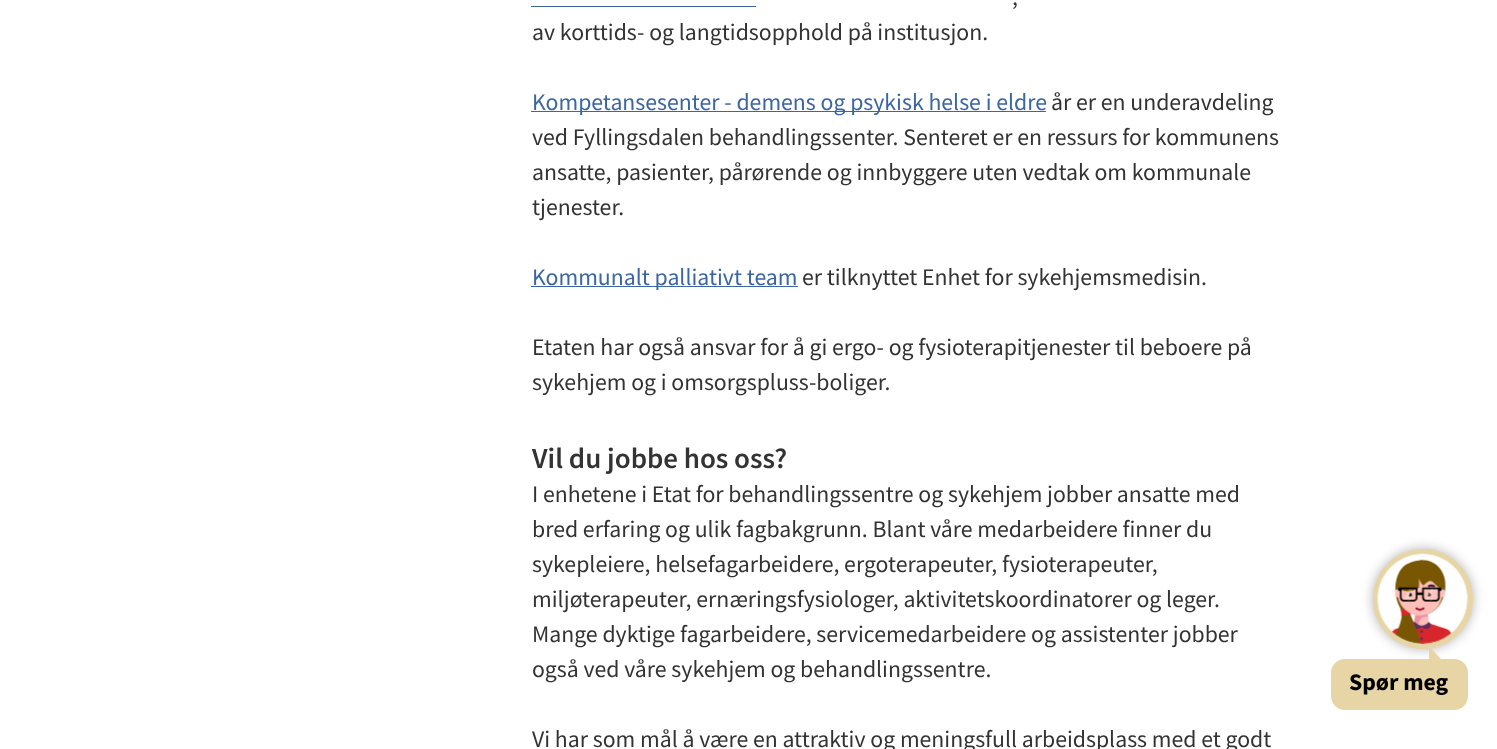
async function draw(canvas) {
  canvas.width = 1497;
  canvas.height = 749;
  const ctx = canvas.getContext('2d');
  ctx.miterLimit = 4;
  ctx.fontKerning = 'normal';
  function label(s, x, y, font, color) {
    ctx.font = font;
    ctx.fillStyle = color;
    ctx.fillText(s, x, y);
  }
  function rect(x, y, w, h, color) {
    ctx.fillStyle = color;
    ctx.fillRect(x, y, w, h);
  }
  function roundedRect(x, y, w, h, r, color) {
    ctx.fillStyle = color;
    ctx.beginPath();
    ctx.roundRect(x, y, w, h, r);
    ctx.fill();
  }
  async function image(src, x, y, w, h) {
    const img = new Image();
    img.src = src;
    await img.decode();
    ctx.drawImage(img, x, y, w, h);
  }
  let path;

  rect(0, 0, 1497, 749, '#fff');
  rect(531, 6, 225, 1, '#3b65a3');
  label(',', 1012, 5, '23.75px Source Sans Pro', '#333');
  label('av korttids- og langtidsopphold på institusjon.', 532, 40, '23.75px Source Sans Pro', '#333');
  rect(531, 111, 515, 1, '#3b65a3');
  label('Kompetansesenter - demens og psykisk helse i eldre', 532, 110, '23.75px Source Sans Pro', '#3b65a3');
  label('år er en underavdeling', 1051, 110, '23.75px Source Sans Pro', '#333');
  label('ved Fyllingsdalen behandlingssenter. Senteret er en ressurs for kommunens', 532, 145, '23.75px Source Sans Pro', '#333');
  label('ansatte, pasienter, pårørende og innbyggere uten vedtak om kommunale', 532, 180, '23.75px Source Sans Pro', '#333');
  label('tjenester.', 532, 215, '23.75px Source Sans Pro', '#333');
  rect(531, 286, 267, 1, '#3b65a3');
  label('Kommunalt palliativt team', 532, 285, '23.75px Source Sans Pro', '#3b65a3');
  label('er tilknyttet Enhet for sykehjemsmedisin.', 802, 285, '23.75px Source Sans Pro', '#333');
  label('Etaten har også ansvar for å gi ergo- og fysioterapitjenester til beboere på', 532, 355, '23.75px Source Sans Pro', '#333');
  label('sykehjem og i omsorgspluss-boliger.', 532, 390, '23.75px Source Sans Pro', '#333');
  label('Vil du jobbe hos oss?', 532, 468, '600 29px Source Sans Pro', '#333');
  label('I enhetene i Etat for behandlingssentre og sykehjem jobber ansatte med', 532, 502, '23.75px Source Sans Pro', '#333');
  label('bred erfaring og ulik fagbakgrunn. Blant våre medarbeidere finner du', 532, 537, '23.75px Source Sans Pro', '#333');
  label('sykepleiere, helsefagarbeidere, ergoterapeuter, fysioterapeuter,', 532, 572, '23.75px Source Sans Pro', '#333');
  label('miljøterapeuter, ernæringsfysiologer, aktivitetskoordinatorer og leger.', 532, 607, '23.75px Source Sans Pro', '#333');
  label('Mange dyktige fagarbeidere, servicemedarbeidere og assistenter jobber', 532, 642, '23.75px Source Sans Pro', '#333');
  label('også ved våre sykehjem og behandlingssentre.', 532, 677, '23.75px Source Sans Pro', '#333');
  label('Vi har som mål å være en attraktiv og meningsfull arbeidsplass med et godt', 532, 747, '23.75px Source Sans Pro', '#333');
  ctx.fillStyle = '#b3b3b3';
  ctx.filter = 'blur(6px)';
  ctx.beginPath();
  ctx.roundRect(1373, 549, 100, 100, 50);
  ctx.fill();
  ctx.filter = 'none';
  ctx.fillStyle = '#e7d5a6';
  ctx.beginPath();
  ctx.arc(1423, 599, 47.5, 0, 2 * Math.PI);
  ctx.fill();
  ctx.strokeStyle = '#e7d5a6';
  ctx.lineWidth = 5;
  ctx.stroke();
  await image('assets/img1.png', 1377, 553, 91, 91);
  roundedRect(1331, 659, 137, 51, 14, '#e7d5a6');
  path = new Path2D('M1429 671V646L1441 659Z');
  ctx.fill(path);
  label('Spør meg', 1349, 690, 'bold 23.75px Source Sans Pro', '#000');
}

draw(document.querySelector('canvas'));
